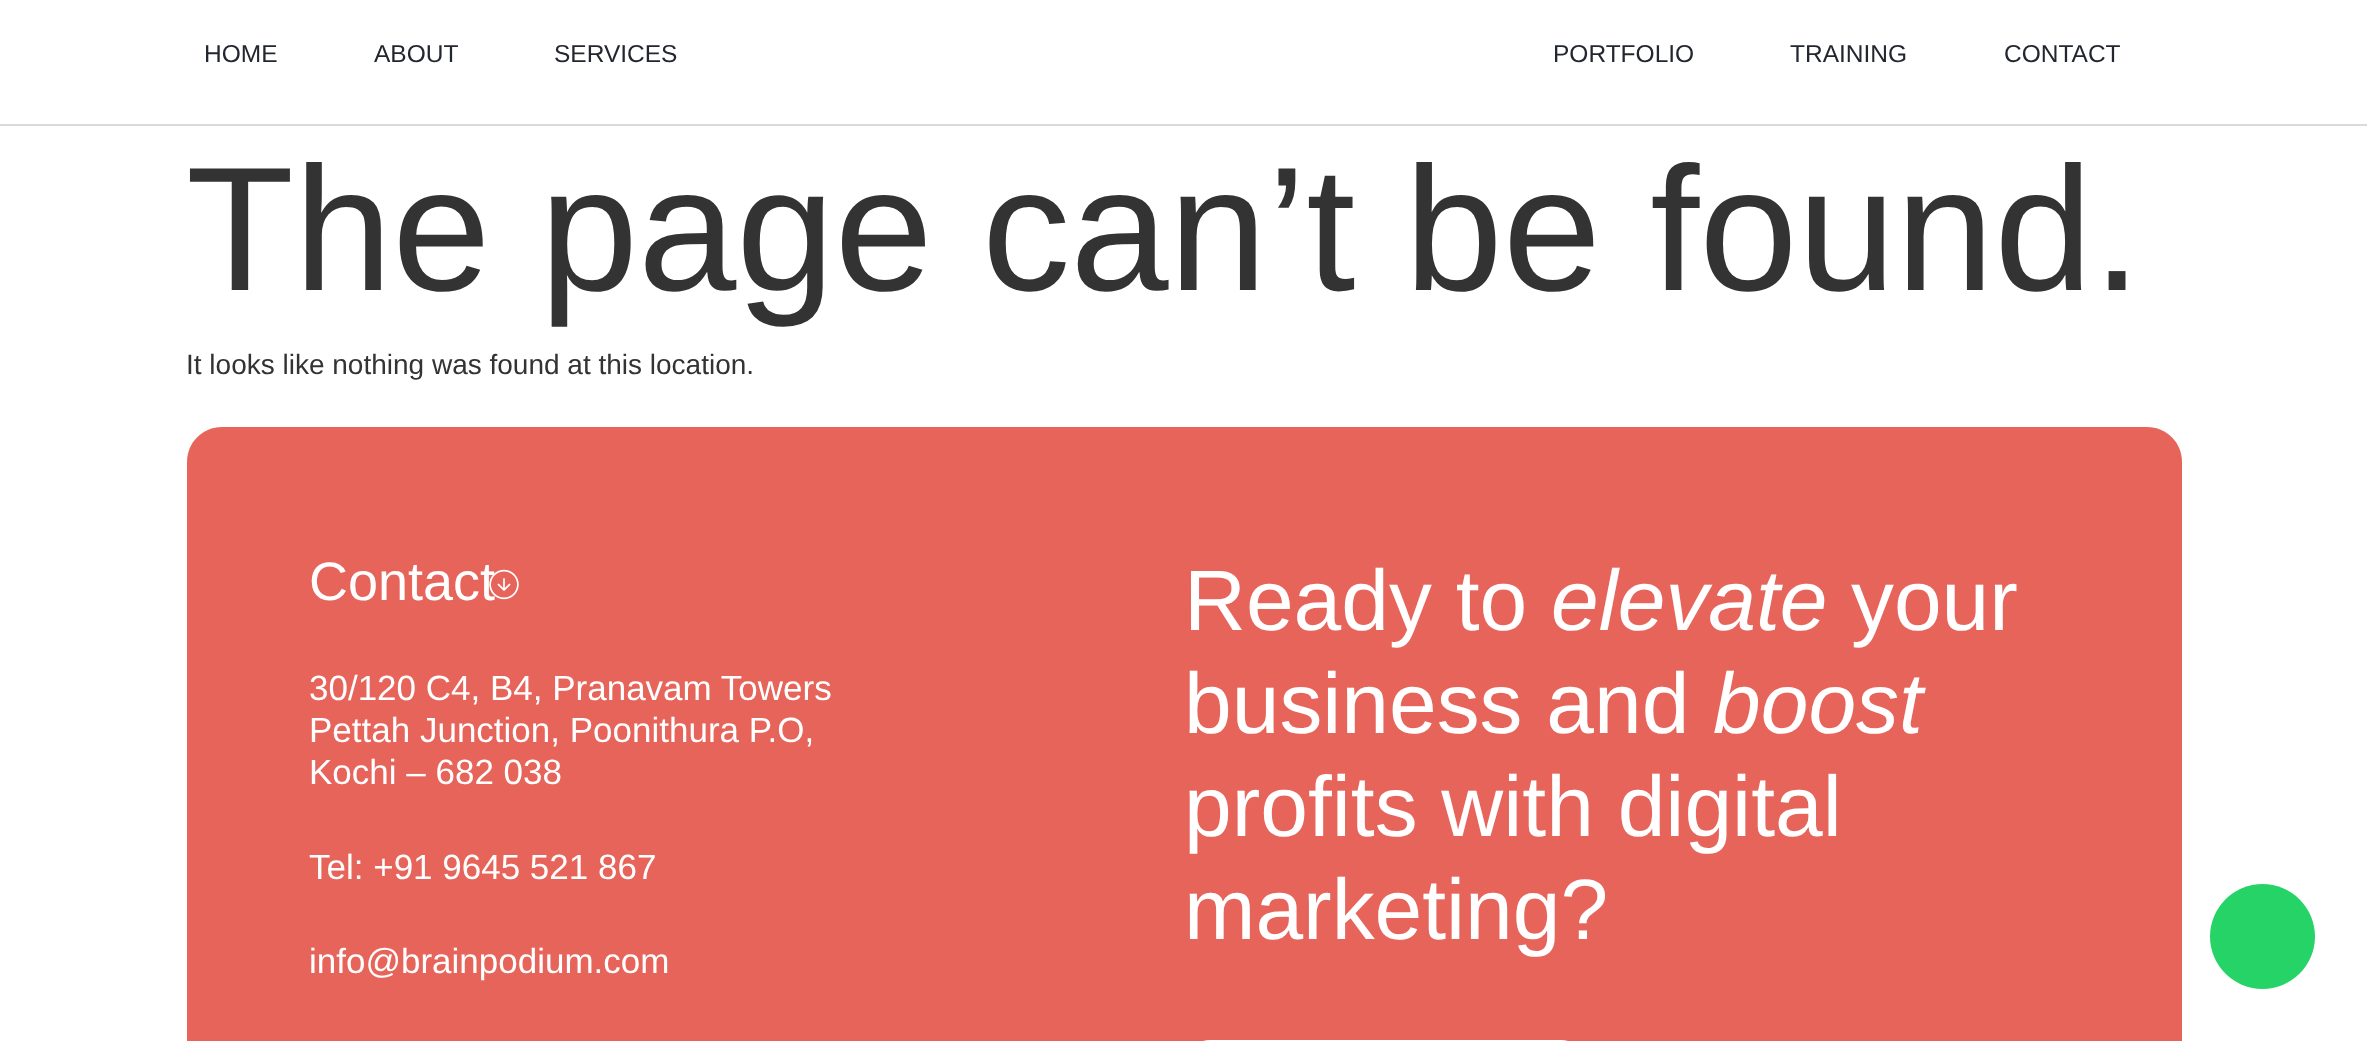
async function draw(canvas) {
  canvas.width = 2367;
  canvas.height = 1041;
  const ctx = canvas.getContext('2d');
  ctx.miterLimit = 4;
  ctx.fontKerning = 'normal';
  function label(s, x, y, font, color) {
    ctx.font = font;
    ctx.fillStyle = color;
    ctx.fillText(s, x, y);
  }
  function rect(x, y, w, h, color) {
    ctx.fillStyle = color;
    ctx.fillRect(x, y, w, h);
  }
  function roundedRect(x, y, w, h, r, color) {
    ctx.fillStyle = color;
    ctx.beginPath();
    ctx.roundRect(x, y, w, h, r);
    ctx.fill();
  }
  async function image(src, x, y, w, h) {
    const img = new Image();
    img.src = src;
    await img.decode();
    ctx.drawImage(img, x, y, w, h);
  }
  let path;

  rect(0, 0, 2367, 1041, '#fff');
  rect(0, 124, 2367, 2, '#dadada');
  label('HOME', 204, 62, '24.5px Liberation Sans', '#22262f');
  label('ABOUT', 374, 62, '24.5px Liberation Sans', '#22262f');
  label('SERVICES', 554, 62, '24.5px Liberation Sans', '#22262f');
  label('PORTFOLIO', 1553, 62, '24.5px Liberation Sans', '#22262f');
  label('TRAINING', 1790, 62, '24.5px Liberation Sans', '#22262f');
  label('CONTACT', 2004, 62, '24.5px Liberation Sans', '#22262f');
  label('The page can’t be found.', 186, 290, '176.75px Liberation Sans', '#333');
  label('It looks like nothing was found at this location.', 186, 374, '28px Liberation Sans', '#333');
  ctx.fillStyle = '#e7645b';
  path = new Path2D('M222 427H2147C2166.5 427 2182 442.5 2182 462V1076H187V462C187 442.5 202.5 427 222 427Z');
  ctx.fill(path);
  label('Contact', 309, 600, '54px Liberation Sans', '#fff');
  await image('assets/img1.png', 489, 569, 30, 31);
  label('30/120 C4, B4, Pranavam Towers', 309, 700, '35px Liberation Sans', '#fff');
  label('Pettah Junction, Poonithura P.O,', 309, 742, '35px Liberation Sans', '#fff');
  label('Kochi – 682 038', 309, 784, '35px Liberation Sans', '#fff');
  label('Tel: +91 9645 521 867', 309, 879, '35px Liberation Sans', '#fff');
  label('info@brainpodium.com', 309, 973, '35px Liberation Sans', '#fff');
  label('Ready to', 1184, 630, '85.75px Liberation Sans', '#fff');
  label('elevate', 1551, 630, 'italic 85.75px Liberation Sans', '#fff');
  label('your', 1851, 630, '85.75px Liberation Sans', '#fff');
  label('business and', 1184, 733, '85.75px Liberation Sans', '#fff');
  label('boost', 1713, 733, 'italic 85.75px Liberation Sans', '#fff');
  label('profits with digital', 1184, 836, '85.75px Liberation Sans', '#fff');
  label('marketing?', 1184, 939, '85.75px Liberation Sans', '#fff');
  roundedRect(1185, 1040, 401, 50, 49, '#fff');
  ctx.fillStyle = '#25d366';
  ctx.beginPath();
  ctx.arc(2262.5, 936.5, 52.5, 0, 2 * Math.PI);
  ctx.fill();
}

draw(document.querySelector('canvas'));
